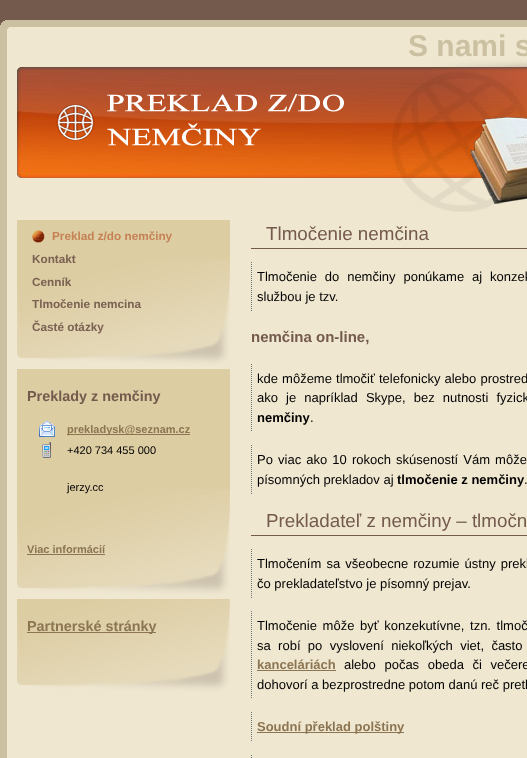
async function draw(canvas) {
  canvas.width = 527;
  canvas.height = 758;
  const ctx = canvas.getContext('2d');
  ctx.miterLimit = 4;
  ctx.fontKerning = 'normal';
  function label(s, x, y, font, color) {
    ctx.font = font;
    ctx.fillStyle = color;
    ctx.fillText(s, x, y);
  }
  function rect(x, y, w, h, color) {
    ctx.fillStyle = color;
    ctx.fillRect(x, y, w, h);
  }
  async function image(src, x, y, w, h) {
    const img = new Image();
    img.src = src;
    await img.decode();
    ctx.drawImage(img, x, y, w, h);
  }
  let path;

  rect(0, 0, 527, 758, '#745a4d');
  rect(7, 212, 520, 546, '#efe7d0');
  rect(0, 212, 7, 546, '#cbc1a2');
  await image('assets/img1.png', 0, 20, 527, 192);
  label('S nami s', 408, 56, 'bold 30px Liberation Sans', '#cbc1a2');
  await image('assets/img2.png', 48, 94, 296, 53);
  rect(17, 220, 213, 39, '#ddcda3');
  await image('assets/img3.png', 17, 259, 213, 110);
  await image('assets/img4.png', 32, 230, 13, 13);
  label('Preklad z/do nemčiny', 52, 240, 'bold 11.75px Liberation Sans', '#c58254');
  label('Kontakt', 32, 263, 'bold 11.75px Liberation Sans', '#7a6152');
  label('Cenník', 32, 286, 'bold 11.75px Liberation Sans', '#7a6152');
  label('Tlmočenie nemcina', 32, 308, 'bold 11.75px Liberation Sans', '#7a6152');
  label('Časté otázky', 32, 331, 'bold 11.75px Liberation Sans', '#7a6152');
  rect(17, 369, 213, 120, '#ddcda3');
  await image('assets/img3.png', 17, 489, 213, 110);
  label('Preklady z nemčiny', 27, 401, 'bold 14.4px Liberation Sans', '#745a4d');
  await image('assets/img5.png', 39, 421, 16, 16);
  rect(67, 434, 123, 1, '#8c7552');
  label('prekladysk@seznam.cz', 67, 433, 'bold 11px Liberation Sans', '#8c7552');
  await image('assets/img6.png', 42, 442, 9, 16);
  label('+420 734 455 000', 67, 454, '11px Liberation Sans', '#000');
  label('jerzy.cc', 67, 491, '11px Liberation Sans', '#000');
  label('Viac informácií', 27, 553, 'bold 11px Liberation Sans', '#8c7552');
  rect(27, 554, 78, 1, '#8c7552');
  await image('assets/img7.png', 17, 599, 213, 97);
  rect(27, 632, 129, 1, '#8c7552');
  label('Partnerské stránky', 27, 631, 'bold 14.4px Liberation Sans', '#8c7552');
  rect(251, 248, 276, 1, '#745a4d');
  label('Tlmočenie nemčina', 266, 240, '18.8px Liberation Sans', '#745a4d');
  path = new Path2D('M251.5 262V311');
  ctx.strokeStyle = '#6e7473';
  ctx.setLineDash([1, 1]);
  ctx.stroke(path);
  ctx.wordSpacing = '4.25px';
  label('Tlmočenie do nemčiny ponúkame aj konzek', 257, 281, '13px Liberation Sans', '#000');
  ctx.wordSpacing = '0px';
  label('službou je tzv.', 257, 301, '13px Liberation Sans', '#000');
  label('nemčina on-line,', 251, 342, 'bold 15px Liberation Sans', '#745a4d');
  path = new Path2D('M251.5 364V432');
  ctx.stroke(path);
  ctx.wordSpacing = '0.5px';
  label('kde môžeme tlmočiť telefonicky alebo prostred', 257, 383, '13px Liberation Sans', '#000');
  ctx.wordSpacing = '4.5px';
  label('ako je napríklad Skype, bez nutnosti fyzick', 257, 402, '13px Liberation Sans', '#000');
  ctx.wordSpacing = '0px';
  label('nemčiny', 257, 422, 'bold 13px Liberation Sans', '#000');
  label('.', 310, 422, '13px Liberation Sans', '#000');
  path = new Path2D('M251.5 445V494');
  ctx.stroke(path);
  ctx.wordSpacing = '1.5px';
  label('Po viac ako 10 rokoch skúseností Vám môže', 257, 464, '13px Liberation Sans', '#000');
  ctx.wordSpacing = '0px';
  label('písomných prekladov aj', 257, 484, '13px Liberation Sans', '#000');
  label('tlmočenie z nemčiny', 397, 484, 'bold 13px Liberation Sans', '#000');
  label('.', 524, 484, '13px Liberation Sans', '#000');
  rect(251, 535, 276, 1, '#745a4d');
  label('Prekladateľ z nemčiny – tlmočn', 266, 527, '18.8px Liberation Sans', '#745a4d');
  path = new Path2D('M251.5 549V598');
  ctx.stroke(path);
  ctx.wordSpacing = '1.5px';
  label('Tlmočením sa všeobecne rozumie ústny prekl', 257, 568, '13px Liberation Sans', '#000');
  ctx.wordSpacing = '0px';
  label('čo prekladateľstvo je písomný prejav.', 257, 588, '13px Liberation Sans', '#000');
  path = new Path2D('M251.5 611V699');
  ctx.stroke(path);
  ctx.wordSpacing = '2px';
  label('Tlmočenie môže byť konzekutívne, tzn. tlmoč', 257, 630, '13px Liberation Sans', '#000');
  ctx.wordSpacing = '3.75px';
  label('sa robí po vyslovení niekoľkých viet, často', 257, 650, '13px Liberation Sans', '#000');
  ctx.wordSpacing = '0px';
  label('kanceláriách', 257, 669, 'bold 13px Liberation Sans', '#8c7552');
  rect(257, 670, 79, 1, '#8c7552');
  ctx.wordSpacing = '5px';
  label('alebo počas obeda či večere', 344, 669, '13px Liberation Sans', '#000');
  ctx.wordSpacing = '0px';
  label('dohovorí a bezprostredne potom danú reč pretl', 257, 689, '13px Liberation Sans', '#000');
  path = new Path2D('M251.5 712V742M251.5 755V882');
  ctx.stroke(path);
  rect(257, 732, 147, 1, '#8c7552');
  label('Soudní překlad polštiny', 257, 731, 'bold 13px Liberation Sans', '#8c7552');
}

draw(document.querySelector('canvas'));
